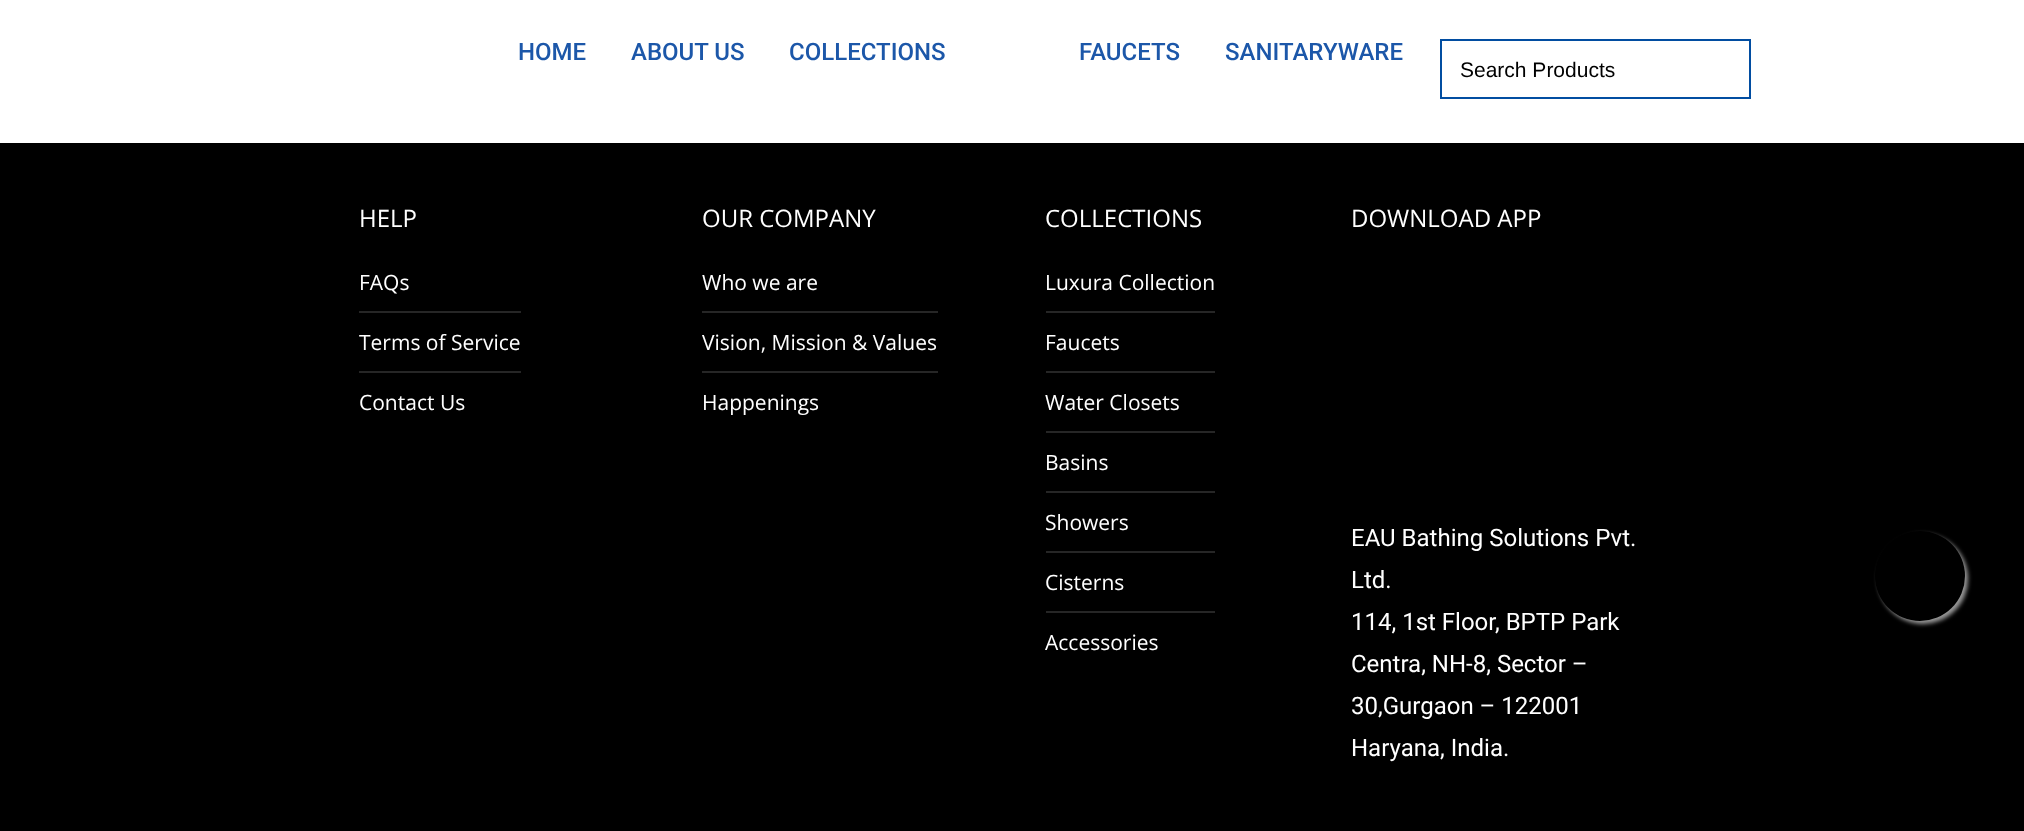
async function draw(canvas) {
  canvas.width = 2024;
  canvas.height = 831;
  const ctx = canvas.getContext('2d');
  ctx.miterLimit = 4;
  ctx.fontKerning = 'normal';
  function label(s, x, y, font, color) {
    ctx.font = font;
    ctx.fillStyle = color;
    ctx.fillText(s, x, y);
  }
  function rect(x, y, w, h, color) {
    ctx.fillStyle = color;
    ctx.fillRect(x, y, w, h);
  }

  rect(0, 0, 2024, 831, '#fff');
  label('HOME', 518, 60, '500 24px Roboto', '#1c57a9');
  label('ABOUT US', 631, 60, '500 24px Roboto', '#1c57a9');
  label('COLLECTIONS', 789, 60, '500 24px Roboto', '#1c57a9');
  label('FAUCETS', 1079, 60, '500 24px Roboto', '#1c57a9');
  label('SANITARYWARE', 1225, 60, '500 24px Roboto', '#1c57a9');
  ctx.strokeStyle = '#014da1';
  ctx.lineWidth = 2;
  ctx.strokeRect(1441, 40, 309, 58);
  label('Search Products', 1460, 77, '21px Liberation Sans', '#000');
  rect(0, 143, 2024, 688, '#000');
  label('HELP', 359, 227, '24px Open Sans', '#fff');
  label('FAQs', 359, 290, '21px Open Sans', '#fff');
  rect(359, 311, 162, 2, '#262626');
  label('Terms of Service', 359, 350, '21px Open Sans', '#fff');
  rect(359, 371, 162, 2, '#262626');
  label('Contact Us', 359, 410, '21px Open Sans', '#fff');
  label('OUR COMPANY', 702, 227, '24px Open Sans', '#fff');
  label('Who we are', 702, 290, '21px Open Sans', '#fff');
  rect(702, 311, 236, 2, '#262626');
  label('Vision, Mission & Values', 702, 350, '21px Open Sans', '#fff');
  rect(702, 371, 236, 2, '#262626');
  label('Happenings', 702, 410, '21px Open Sans', '#fff');
  label('COLLECTIONS', 1045, 227, '24px Open Sans', '#fff');
  label('Luxura Collection', 1045, 290, '21px Open Sans', '#fff');
  rect(1046, 311, 169, 2, '#262626');
  label('Faucets', 1045, 350, '21px Open Sans', '#fff');
  rect(1046, 371, 169, 2, '#262626');
  label('Water Closets', 1045, 410, '21px Open Sans', '#fff');
  rect(1046, 431, 169, 2, '#262626');
  label('Basins', 1045, 470, '21px Open Sans', '#fff');
  rect(1046, 491, 169, 2, '#262626');
  label('Showers', 1045, 530, '21px Open Sans', '#fff');
  rect(1046, 551, 169, 2, '#262626');
  label('Cisterns', 1045, 590, '21px Open Sans', '#fff');
  rect(1046, 611, 169, 2, '#262626');
  label('Accessories', 1045, 650, '21px Open Sans', '#fff');
  label('DOWNLOAD APP', 1351, 227, '24px Open Sans', '#fff');
  label('EAU Bathing Solutions Pvt.', 1351, 546, '24px Roboto', '#fff');
  label('Ltd.', 1351, 588, '24px Roboto', '#fff');
  label('114, 1st Floor, BPTP Park', 1351, 630, '24px Roboto', '#fff');
  label('Centra, NH-8, Sector –', 1351, 672, '24px Roboto', '#fff');
  label('30,Gurgaon – 122001', 1351, 714, '24px Roboto', '#fff');
  label('Haryana, India.', 1351, 756, '24px Roboto', '#fff');
  ctx.fillStyle = '#999';
  ctx.filter = 'blur(2px)';
  ctx.beginPath();
  ctx.roundRect(1878, 534, 90, 90, 45);
  ctx.fill();
  ctx.filter = 'none';
  ctx.fillStyle = '#000';
  ctx.beginPath();
  ctx.arc(1920, 576, 45, 0, 2 * Math.PI);
  ctx.fill();
}

draw(document.querySelector('canvas'));
